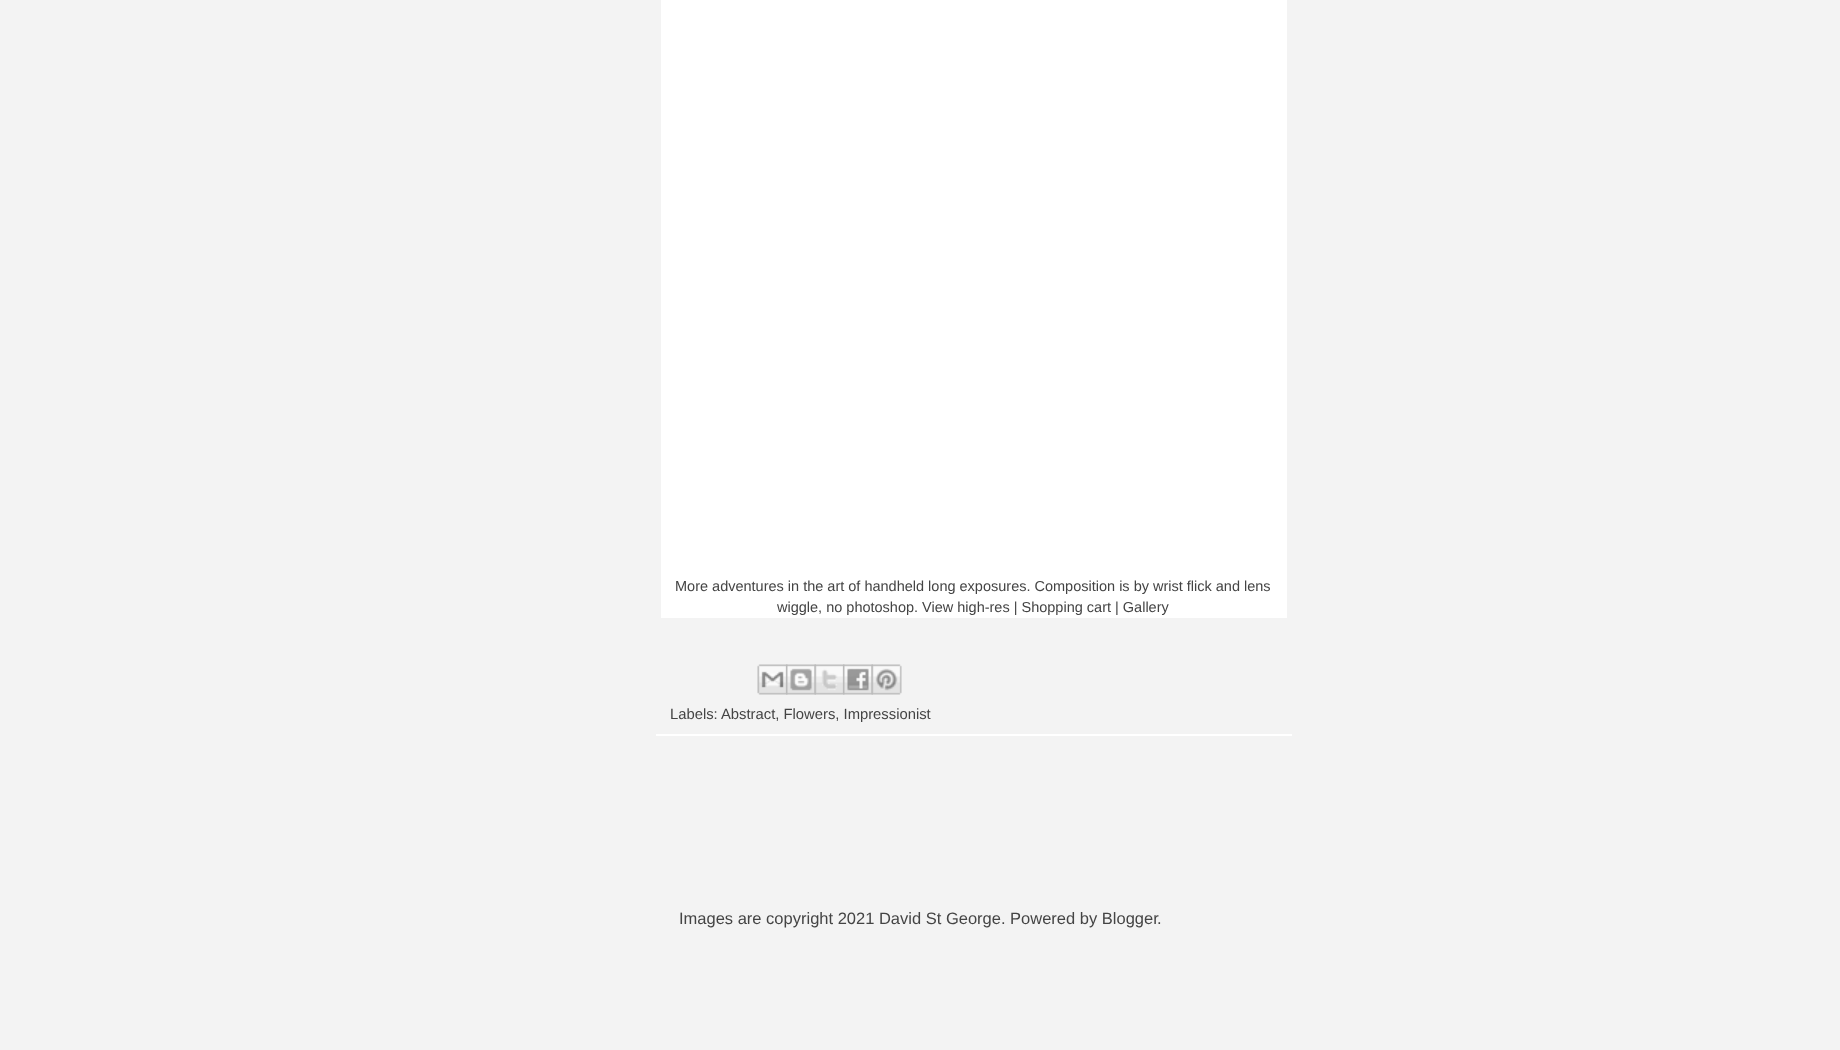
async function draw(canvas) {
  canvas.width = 1840;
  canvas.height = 1050;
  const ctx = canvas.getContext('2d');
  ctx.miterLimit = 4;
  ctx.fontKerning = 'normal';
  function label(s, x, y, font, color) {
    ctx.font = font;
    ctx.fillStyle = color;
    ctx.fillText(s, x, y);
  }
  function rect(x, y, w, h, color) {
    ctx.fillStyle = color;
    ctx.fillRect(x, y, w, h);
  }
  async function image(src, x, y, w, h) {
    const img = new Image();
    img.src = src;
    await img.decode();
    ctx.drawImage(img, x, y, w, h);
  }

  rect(0, 0, 1840, 1050, '#f3f3f3');
  rect(661, 0, 626, 618, '#fff');
  label('More adventures in the art of handheld long exposures. Composition is by wrist flick and lens', 675, 591, '14.5px Liberation Sans', '#444');
  label('wiggle, no photoshop. View high-res | Shopping cart | Gallery', 777, 612, '14.5px Liberation Sans', '#444');
  rect(656, 734, 636, 2, '#fff');
  await image('assets/img1.png', 757, 664, 31, 31);
  await image('assets/img2.png', 786, 664, 30, 31);
  await image('assets/img3.png', 814, 664, 31, 31);
  await image('assets/img4.png', 843, 664, 30, 31);
  await image('assets/img5.png', 871, 664, 31, 31);
  label('Labels:', 670, 719, '14.8px Liberation Sans', '#444');
  label('Abstract, Flowers, Impressionist', 721, 719, '14.8px Liberation Sans', '#444');
  label('Images are copyright 2021 David St George. Powered by Blogger', 679, 924, '16.5px Liberation Sans', '#444');
  label('.', 1157, 924, '16.5px Liberation Sans', '#444');
}

draw(document.querySelector('canvas'));
